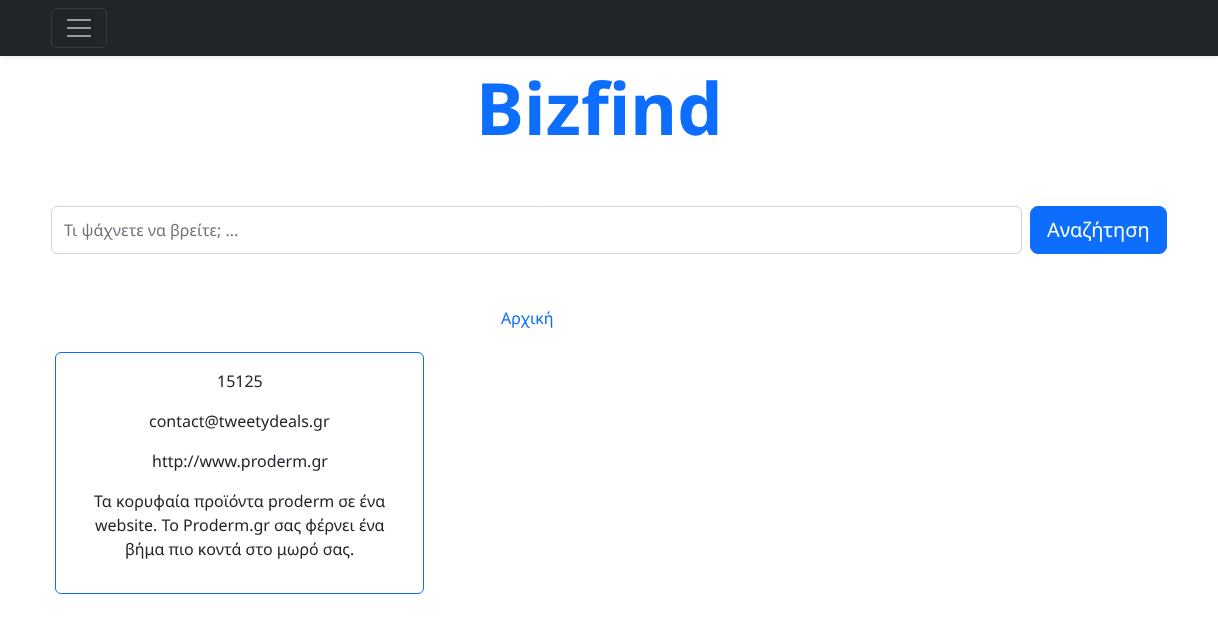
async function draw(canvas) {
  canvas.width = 1218;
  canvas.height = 623;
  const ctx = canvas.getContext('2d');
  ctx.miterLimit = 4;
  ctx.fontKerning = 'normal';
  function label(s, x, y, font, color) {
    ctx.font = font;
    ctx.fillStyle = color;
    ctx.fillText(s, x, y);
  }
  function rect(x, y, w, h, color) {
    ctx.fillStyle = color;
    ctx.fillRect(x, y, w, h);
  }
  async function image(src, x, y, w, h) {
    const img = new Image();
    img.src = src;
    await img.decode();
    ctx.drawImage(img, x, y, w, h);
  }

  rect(0, 0, 1218, 623, '#fff');
  ctx.fillStyle = '#00000012';
  ctx.filter = 'blur(2px)';
  ctx.beginPath();
  ctx.rect(0, 2, 1218, 56);
  ctx.fill();
  ctx.filter = 'none';
  rect(0, 0, 1218, 56, '#212529');
  ctx.beginPath();
  ctx.roundRect(51.5, 8.5, 55, 39, 5.5);
  ctx.strokeStyle = '#373b3e';
  ctx.stroke();
  await image('assets/img1.png', 67, 19, 24, 18);
  label('Bizfind', 476, 135, 'bold 72px Noto Sans', '#0d6efd');
  ctx.beginPath();
  ctx.roundRect(51.5, 206.5, 970, 47, 5.5);
  ctx.strokeStyle = '#ced4da';
  ctx.stroke();
  label('Τι ψάχνετε να βρείτε; ...', 64, 236, '16px Noto Sans', '#6c757d');
  ctx.fillStyle = '#0d6efd';
  ctx.beginPath();
  ctx.roundRect(1030.5, 206.5, 136, 47, 7.5);
  ctx.fill();
  ctx.strokeStyle = '#0d6efd';
  ctx.stroke();
  label('Αναζήτηση', 1047, 237, '20px Noto Sans', '#fff');
  label('Αρχική', 501, 324, '16px Noto Sans', '#0d6efd');
  ctx.beginPath();
  ctx.roundRect(55.5, 352.5, 368, 241, 5.5);
  ctx.stroke();
  label('15125', 217, 387, '16px Noto Sans', '#212529');
  label('contact@tweetydeals.gr', 149, 427, '16px Noto Sans', '#212529');
  label('http://www.proderm.gr', 152, 467, '16px Noto Sans', '#212529');
  label('Τα κορυφαία προϊόντα proderm σε ένα', 94, 507, '16px Noto Sans', '#212529');
  label('website. Το Proderm.gr σας φέρνει ένα', 95, 531, '16px Noto Sans', '#212529');
  label('βήμα πιο κοντά στο μωρό σας.', 125, 555, '16px Noto Sans', '#212529');
}

draw(document.querySelector('canvas'));
